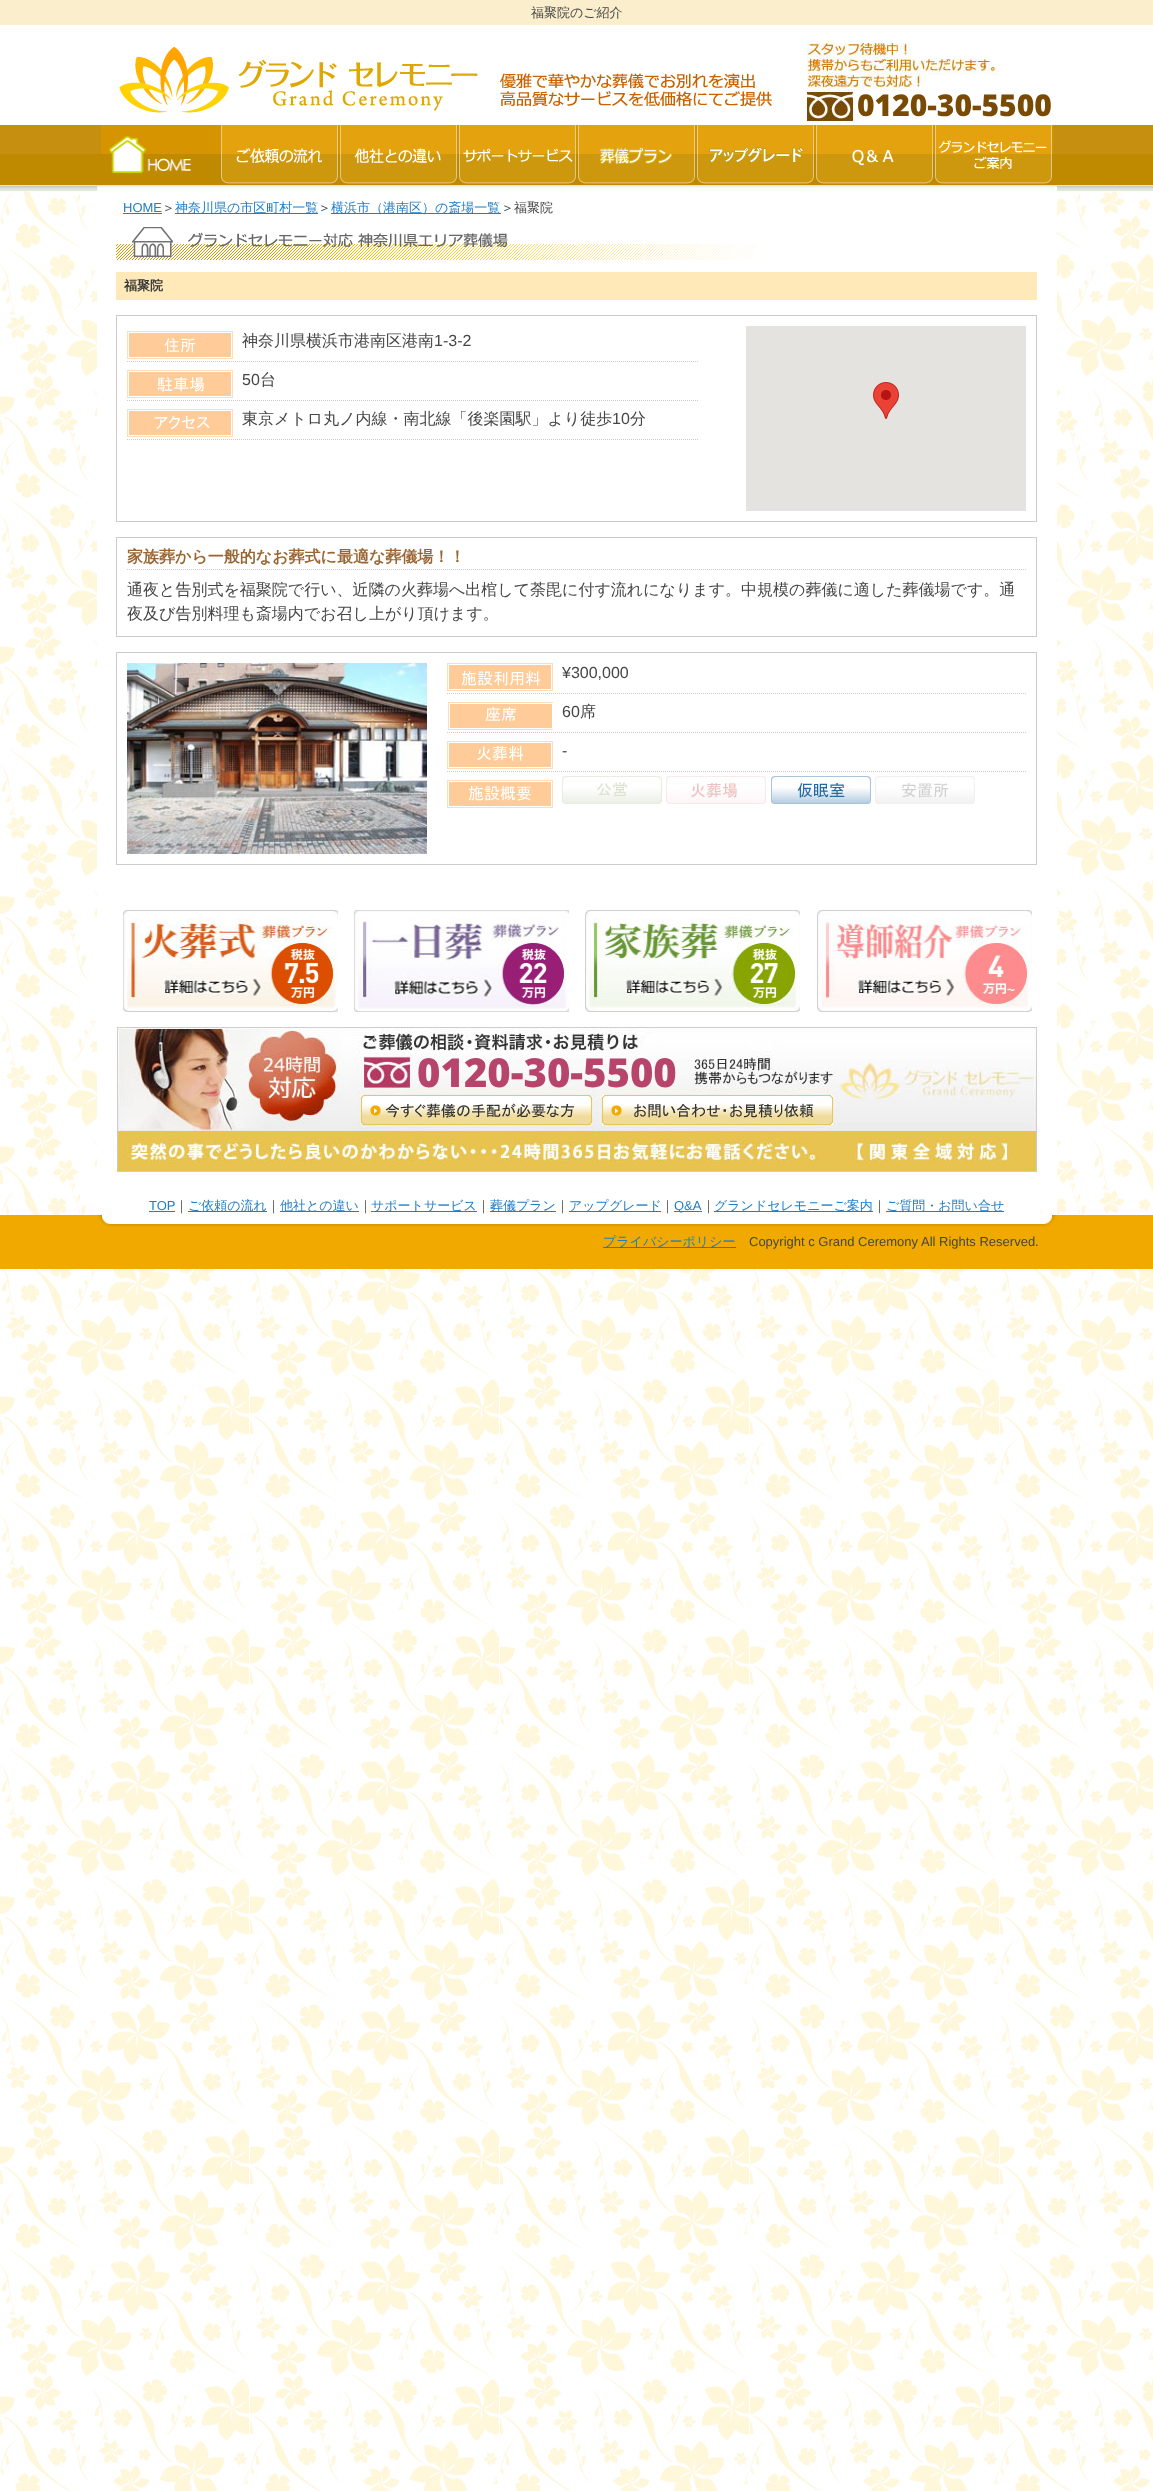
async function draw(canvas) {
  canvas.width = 1153;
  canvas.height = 2491;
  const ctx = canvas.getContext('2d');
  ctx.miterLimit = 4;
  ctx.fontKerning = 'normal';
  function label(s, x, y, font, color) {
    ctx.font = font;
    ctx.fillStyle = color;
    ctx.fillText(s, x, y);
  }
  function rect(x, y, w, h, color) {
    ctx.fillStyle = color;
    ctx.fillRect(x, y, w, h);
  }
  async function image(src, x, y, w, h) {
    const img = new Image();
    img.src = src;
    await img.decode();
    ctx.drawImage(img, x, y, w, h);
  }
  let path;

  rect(0, 0, 1153, 2491, '#fff');
  await image('assets/img1.png', 0, 191, 1153, 2300);
  rect(0, 0, 1153, 25, '#fbeecc');
  label('福聚院のご紹介', 531, 17, '500 13px WenQuanYi Zen Hei', '#464646');
  await image('assets/img2.png', 119, 46, 653, 67);
  await image('assets/img3.png', 807, 43, 192, 80);
  label('0120-30-5500', 857, 116, '800 30px Open Sans', '#794a04');
  await image('assets/img4.png', 0, 125, 1153, 66);
  await image('assets/img5.png', 97, 185, 4, 6);
  await image('assets/img6.png', 101, 125, 119, 66);
  await image('assets/img7.png', 220, 125, 119, 66);
  await image('assets/img8.png', 339, 125, 119, 66);
  await image('assets/img9.png', 458, 125, 119, 66);
  await image('assets/img10.png', 577, 125, 119, 66);
  await image('assets/img11.png', 696, 125, 119, 66);
  await image('assets/img12.png', 815, 125, 119, 66);
  await image('assets/img13.png', 934, 125, 119, 66);
  await image('assets/img5.png', 1053, 185, 4, 6);
  rect(97, 191, 960, 1024, '#fff');
  label('HOME', 123, 212, '13px Liberation Sans', '#217dc6');
  rect(123, 213, 39, 1, '#217dc6');
  label('＞', 162, 212, '500 13px WenQuanYi Zen Hei', '#464646');
  rect(175, 213, 143, 1, '#217dc6');
  label('神奈川県の市区町村一覧', 175, 212, '500 13px WenQuanYi Zen Hei', '#217dc6');
  label('＞', 318, 212, '500 13px WenQuanYi Zen Hei', '#464646');
  rect(331, 213, 170, 1, '#217dc6');
  label('横浜市（港南区）の斎場一覧', 331, 212, '500 13px WenQuanYi Zen Hei', '#217dc6');
  label('＞福聚院', 501, 212, '500 13px WenQuanYi Zen Hei', '#464646');
  await image('assets/img14.png', 116, 227, 652, 33);
  rect(116, 272, 921, 28, '#ffe9b8');
  label('福聚院', 124, 290, 'bold 13px WenQuanYi Zen Hei', '#333');
  rect(116, 315, 921, 1, '#ccc');
  rect(1036, 315, 1, 207, '#ccc');
  rect(116, 521, 921, 1, '#ccc');
  rect(116, 315, 1, 207, '#ccc');
  await image('assets/img15.png', 127, 331, 106, 28);
  path = new Path2D('M127 361.5H698');
  ctx.strokeStyle = '#ccc';
  ctx.setLineDash([1, 1]);
  ctx.stroke(path);
  label('神奈川県横浜市港南区港南', 242, 346, '500 16px WenQuanYi Zen Hei', '#464646');
  label('1-3-2', 434, 346, '16px Liberation Sans', '#464646');
  await image('assets/img16.png', 127, 370, 106, 28);
  path = new Path2D('M127 400.5H698');
  ctx.stroke(path);
  label('50', 242, 385, '16px Liberation Sans', '#464646');
  label('台', 260, 385, '500 16px WenQuanYi Zen Hei', '#464646');
  await image('assets/img17.png', 127, 409, 106, 28);
  path = new Path2D('M127 439.5H698');
  ctx.stroke(path);
  label('東京メトロ丸ノ内線・南北線「後楽園駅」より徒歩', 242, 424, '500 16px WenQuanYi Zen Hei', '#464646');
  label('10', 612, 424, '16px Liberation Sans', '#464646');
  label('分', 630, 424, '500 16px WenQuanYi Zen Hei', '#464646');
  rect(746, 326, 280, 185, '#e5e3df');
  await image('assets/img18.png', 873, 382, 26, 37);
  ctx.setLineDash([]);
  ctx.strokeRect(116.5, 537.5, 920, 99);
  path = new Path2D('M127 569.5H1026');
  ctx.setLineDash([1, 1]);
  ctx.stroke(path);
  label('家族葬から一般的なお葬式に最適な葬儀場！！', 127, 562, 'bold 16px WenQuanYi Zen Hei', '#963');
  label('通夜と告別式を福聚院で行い、近隣の火葬場へ出棺して荼毘に付す流れになります。中規模の葬儀に適した葬儀場です。通', 127, 595, '500 16px WenQuanYi Zen Hei', '#464646');
  label('夜及び告別料理も斎場内でお召し上がり頂けます。', 127, 619, '500 16px WenQuanYi Zen Hei', '#464646');
  rect(116, 652, 921, 1, '#ccc');
  rect(1036, 652, 1, 213, '#ccc');
  rect(116, 864, 921, 1, '#ccc');
  rect(116, 652, 1, 213, '#ccc');
  await image('assets/img19.png', 127, 663, 300, 191);
  await image('assets/img20.png', 447, 663, 106, 28);
  path = new Path2D('M447 693.5H1026');
  ctx.stroke(path);
  label('¥300,000', 562, 678, '16px Liberation Sans', '#464646');
  await image('assets/img21.png', 448, 702, 105, 28);
  path = new Path2D('M447 732.5H1026');
  ctx.stroke(path);
  label('60', 562, 717, '16px Liberation Sans', '#464646');
  label('席', 580, 717, '500 16px WenQuanYi Zen Hei', '#464646');
  await image('assets/img22.png', 447, 741, 106, 28);
  path = new Path2D('M447 771.5H1026');
  ctx.stroke(path);
  label('-', 562, 756, '16px Liberation Sans', '#464646');
  await image('assets/img23.png', 447, 780, 106, 28);
  await image('assets/img24.png', 562, 776, 100, 28);
  await image('assets/img25.png', 666, 776, 100, 28);
  await image('assets/img26.png', 771, 776, 100, 28);
  await image('assets/img27.png', 875, 776, 100, 28);
  await image('assets/img28.png', 123, 910, 215, 102);
  await image('assets/img29.png', 354, 910, 215, 102);
  await image('assets/img30.png', 585, 910, 215, 102);
  await image('assets/img31.png', 817, 910, 215, 102);
  await image('assets/img32.png', 117, 1027, 920, 145);
  label('0120-30-5500', 417, 1087, '800 40px Open Sans', '#b6446b');
  await image('assets/img33.png', 361, 1095, 231, 30);
  await image('assets/img34.png', 602, 1095, 231, 30);
  label('TOP', 149, 1210, '13px Liberation Sans', '#217dc6');
  rect(149, 1211, 26, 1, '#217dc6');
  label('｜', 175, 1210, '500 13px WenQuanYi Zen Hei', '#464646');
  rect(188, 1211, 79, 1, '#217dc6');
  label('ご依頼の流れ', 188, 1210, '500 13px WenQuanYi Zen Hei', '#217dc6');
  label('｜', 267, 1210, '500 13px WenQuanYi Zen Hei', '#464646');
  rect(280, 1211, 79, 1, '#217dc6');
  label('他社との違い', 280, 1210, '500 13px WenQuanYi Zen Hei', '#217dc6');
  label('｜', 359, 1210, '500 13px WenQuanYi Zen Hei', '#464646');
  rect(371, 1211, 106, 1, '#217dc6');
  label('サポートサービス', 371, 1210, '500 13px WenQuanYi Zen Hei', '#217dc6');
  label('｜', 477, 1210, '500 13px WenQuanYi Zen Hei', '#464646');
  rect(490, 1211, 66, 1, '#217dc6');
  label('葬儀プラン', 490, 1210, '500 13px WenQuanYi Zen Hei', '#217dc6');
  label('｜', 556, 1210, '500 13px WenQuanYi Zen Hei', '#464646');
  rect(569, 1211, 92, 1, '#217dc6');
  label('アップグレード', 569, 1210, '500 13px WenQuanYi Zen Hei', '#217dc6');
  label('｜', 661, 1210, '500 13px WenQuanYi Zen Hei', '#464646');
  rect(674, 1211, 28, 1, '#217dc6');
  label('Q&A', 674, 1210, '13px Liberation Sans', '#217dc6');
  label('｜', 702, 1210, '500 13px WenQuanYi Zen Hei', '#464646');
  rect(714, 1211, 159, 1, '#217dc6');
  label('グランドセレモニーご案内', 714, 1210, '500 13px WenQuanYi Zen Hei', '#217dc6');
  label('｜', 873, 1210, '500 13px WenQuanYi Zen Hei', '#464646');
  rect(886, 1211, 118, 1, '#217dc6');
  label('ご質問・お問い合せ', 886, 1210, '500 13px WenQuanYi Zen Hei', '#217dc6');
  rect(0, 1215, 97, 18, '#f1a900');
  rect(97, 1227, 960, 6, '#f1a900');
  await image('assets/img35.png', 97, 1215, 960, 12);
  rect(1057, 1215, 96, 18, '#f1a900');
  rect(0, 1233, 1153, 36, '#f1a900');
  rect(603, 1247, 133, 1, '#217dc6');
  label('プライバシーポリシー', 603, 1246, '500 13px WenQuanYi Zen Hei', '#217dc6');
  label('Copyright c Grand Ceremony All Rights Reserved.', 749, 1246, '13px Liberation Sans', '#464646');
}

draw(document.querySelector('canvas'));
